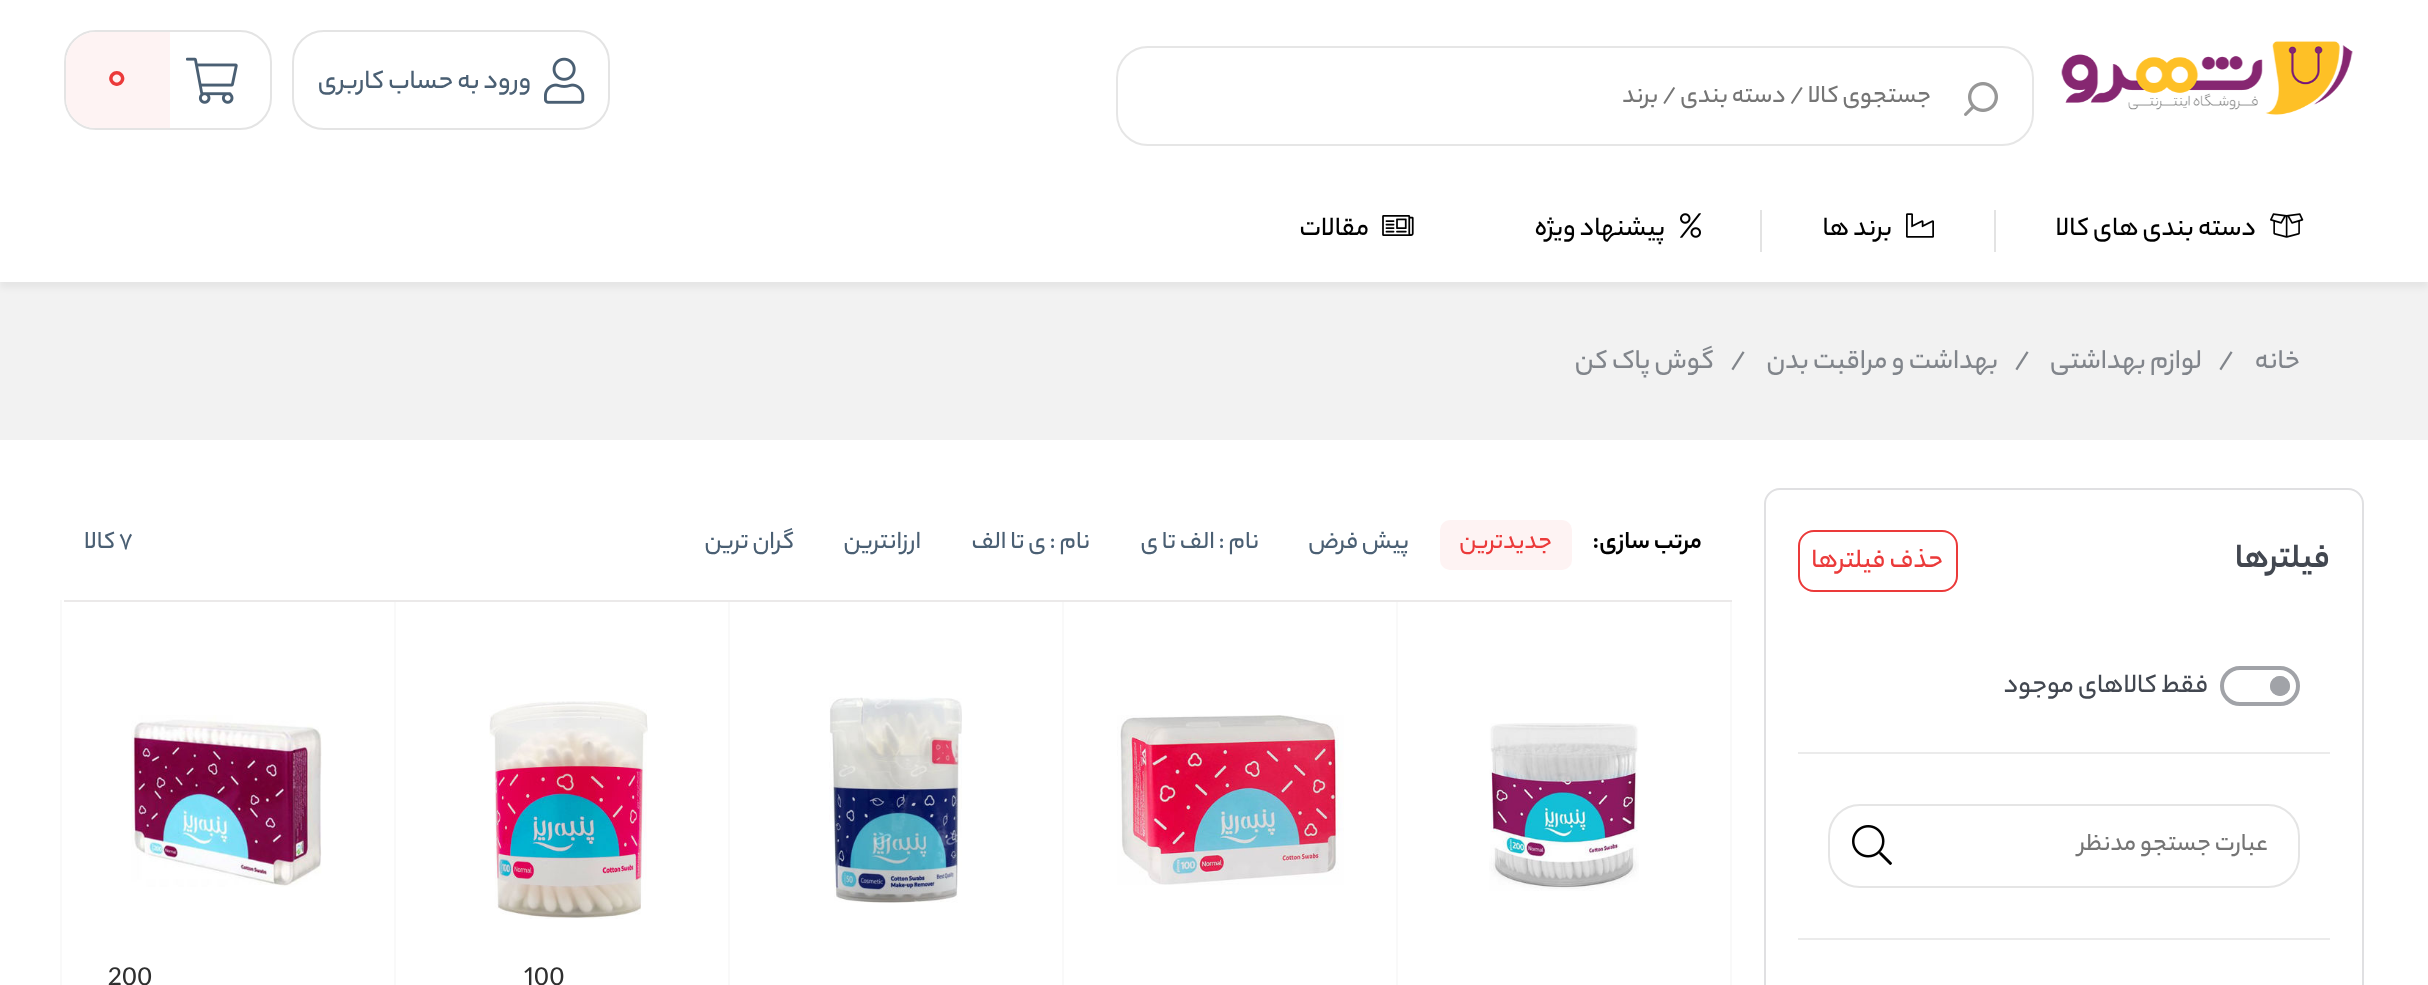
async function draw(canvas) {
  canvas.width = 2428;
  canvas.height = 985;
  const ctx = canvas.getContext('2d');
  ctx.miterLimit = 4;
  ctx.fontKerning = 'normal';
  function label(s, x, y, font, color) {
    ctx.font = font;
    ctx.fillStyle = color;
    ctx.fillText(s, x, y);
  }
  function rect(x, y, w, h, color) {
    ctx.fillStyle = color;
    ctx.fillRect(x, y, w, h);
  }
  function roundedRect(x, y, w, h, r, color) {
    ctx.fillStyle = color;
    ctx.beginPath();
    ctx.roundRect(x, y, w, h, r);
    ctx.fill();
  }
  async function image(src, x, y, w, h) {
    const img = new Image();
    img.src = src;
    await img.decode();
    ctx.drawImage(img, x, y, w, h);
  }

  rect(0, 0, 2428, 985, '#f2f2f2');
  ctx.fillStyle = '#0000000d';
  ctx.filter = 'blur(3px)';
  ctx.beginPath();
  ctx.rect(0, 188, 2428, 100);
  ctx.fill();
  ctx.filter = 'none';
  rect(0, 0, 2428, 282, '#fff');
  await image('assets/img1.png', 2061, 41, 292, 74);
  ctx.beginPath();
  ctx.roundRect(1117, 47, 916, 98, 31);
  ctx.strokeStyle = '#e6e6e6';
  ctx.lineWidth = 2;
  ctx.stroke();
  await image('assets/img2.png', 1964, 82, 34, 34);
  ctx.direction = 'rtl';
  label('جستجوی کالا / دسته بندی / برند', 1931, 102, '500 26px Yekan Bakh', '#757575');
  ctx.beginPath();
  ctx.roundRect(293, 31, 316, 98, 31);
  ctx.strokeStyle = '#e4e4e4';
  ctx.stroke();
  await image('assets/img3.png', 544, 57, 41, 47);
  label('ورود به حساب کاربری', 531, 88, '500 28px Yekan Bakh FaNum', '#4a5f73');
  ctx.beginPath();
  ctx.roundRect(65, 31, 206, 98, 31);
  ctx.stroke();
  await image('assets/img4.png', 186, 57, 52, 47);
  ctx.fillStyle = '#fef3f3';
  ctx.beginPath();
  ctx.roundRect(66, 32, 104, 96, [30, 0, 0, 30]);
  ctx.fill();
  ctx.direction = 'ltr';
  label('0', 107, 88, '500 44px Yekan Bakh FaNum', '#eb3a3a');
  rect(1994, 210, 2, 42, '#e3e3e3');
  await image('assets/img5.png', 2270, 213, 34, 25);
  ctx.direction = 'rtl';
  label('دسته بندی های کالا', 2256, 235, '500 28px Yekan Bakh FaNum', '#000');
  rect(1760, 210, 2, 42, '#e3e3e3');
  await image('assets/img6.png', 1906, 213, 28, 25);
  label('برند ها', 1892, 235, '500 28px Yekan Bakh FaNum', '#000');
  await image('assets/img7.png', 1680, 213, 21, 25);
  label('پیشنهاد ویژه', 1665, 235, '500 28px Yekan Bakh FaNum', '#000');
  await image('assets/img8.png', 1382, 215, 32, 21);
  label('مقالات', 1369, 235, '500 28px Yekan Bakh FaNum', '#000');
  label('خانه', 2300, 368, '500 28.75px Yekan Bakh', '#81858b');
  ctx.direction = 'ltr';
  label('/', 2218, 368, '500 28.75px Yekan Bakh', '#81858b');
  ctx.direction = 'rtl';
  label('لوازم بهداشتی', 2202, 368, '500 28.75px Yekan Bakh', '#81858b');
  ctx.direction = 'ltr';
  label('/', 2014, 368, '500 28.75px Yekan Bakh', '#81858b');
  ctx.direction = 'rtl';
  label('بهداشت و مراقبت بدن', 1998, 368, '500 28.75px Yekan Bakh', '#81858b');
  ctx.direction = 'ltr';
  label('/', 1730, 368, '500 28.75px Yekan Bakh', '#81858b');
  ctx.direction = 'rtl';
  label('گوش پاک کن', 1714, 368, '500 28.75px Yekan Bakh', '#81858b');
  rect(0, 440, 2428, 545, '#fff');
  ctx.beginPath();
  ctx.roundRect(1765, 489, 598, 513, 15);
  ctx.strokeStyle = '#e0e0e2';
  ctx.stroke();
  label('فیلترها', 2330, 567, 'bold 36px Yekan Bakh FaNum', '#424750');
  ctx.beginPath();
  ctx.roundRect(1799, 531, 158, 60, 15);
  ctx.strokeStyle = '#eb3a3a';
  ctx.stroke();
  label('حذف فیلترها', 1943, 567, '500 28px Yekan Bakh FaNum', '#eb3a3a');
  ctx.beginPath();
  ctx.roundRect(2222, 668, 76, 36, 18);
  ctx.strokeStyle = '#a1a3a8';
  ctx.lineWidth = 4;
  ctx.stroke();
  ctx.beginPath();
  ctx.arc(2280, 686, 9, 0, 2 * Math.PI);
  ctx.lineWidth = 2;
  ctx.stroke();
  label('فقط کالاهای موجود', 2208, 692, '500 28px Yekan Bakh', '#424750');
  ctx.fillStyle = '#a1a3a8';
  ctx.beginPath();
  ctx.arc(2280, 686, 10, 0, 2 * Math.PI);
  ctx.fill();
  rect(1798, 752, 532, 2, '#ebebeb');
  ctx.beginPath();
  ctx.roundRect(1829, 805, 470, 82, 31);
  ctx.strokeStyle = '#e5e5e5';
  ctx.stroke();
  label('عبارت جستجو مدنظر', 2268, 850, '500 26px Yekan Bakh FaNum', '#757575');
  await image('assets/img9.png', 1852, 825, 40, 40);
  rect(1798, 938, 532, 2, '#ebebeb');
  rect(1730, 600, 2, 385, '#f9f9f9');
  rect(1396, 600, 2, 385, '#f9f9f9');
  rect(1062, 600, 2, 385, '#f9f9f9');
  rect(728, 600, 2, 385, '#f9f9f9');
  rect(394, 600, 2, 385, '#f9f9f9');
  rect(64, 600, 1668, 2, '#ebe9e9');
  label('مرتب سازی:', 1702, 548, 'bold 26px Yekan Bakh FaNum', '#000');
  roundedRect(1440, 520, 132, 50, 10, '#fef3f3');
  label('جدیدترین', 1552, 548, '500 26px Yekan Bakh FaNum', '#eb3a3a');
  label('پیش فرض', 1409, 548, '500 26px Yekan Bakh FaNum', '#4a5f73');
  label('نام : الف تا ی', 1259, 548, '500 26px Yekan Bakh FaNum', '#4a5f73');
  label('نام : ی تا الف', 1090, 548, '500 26px Yekan Bakh FaNum', '#4a5f73');
  label('ارزانترین', 921, 548, '500 26px Yekan Bakh FaNum', '#4a5f73');
  label('گران ترین', 794, 548, '500 26px Yekan Bakh FaNum', '#4a5f73');
  ctx.direction = 'ltr';
  label('7', 119, 548, '500 26px Yekan Bakh FaNum', '#4a5f73');
  ctx.direction = 'rtl';
  label('کالا', 115, 548, '500 26px Yekan Bakh FaNum', '#4a5f73');
  await image('assets/img10.png', 1489, 723, 150, 168);
  await image('assets/img11.png', 1117, 715, 227, 170);
  await image('assets/img12.png', 829, 697, 133, 206);
  await image('assets/img13.png', 489, 701, 159, 218);
  ctx.direction = 'ltr';
  label('100', 524, 985, '500 28px Yekan Bakh', '#2f2f2f');
  rect(60, 600, 2, 385, '#f9f9f9');
  await image('assets/img14.png', 131, 715, 191, 172);
  label('200', 108, 985, '500 28px Yekan Bakh', '#2f2f2f');
}

draw(document.querySelector('canvas'));
